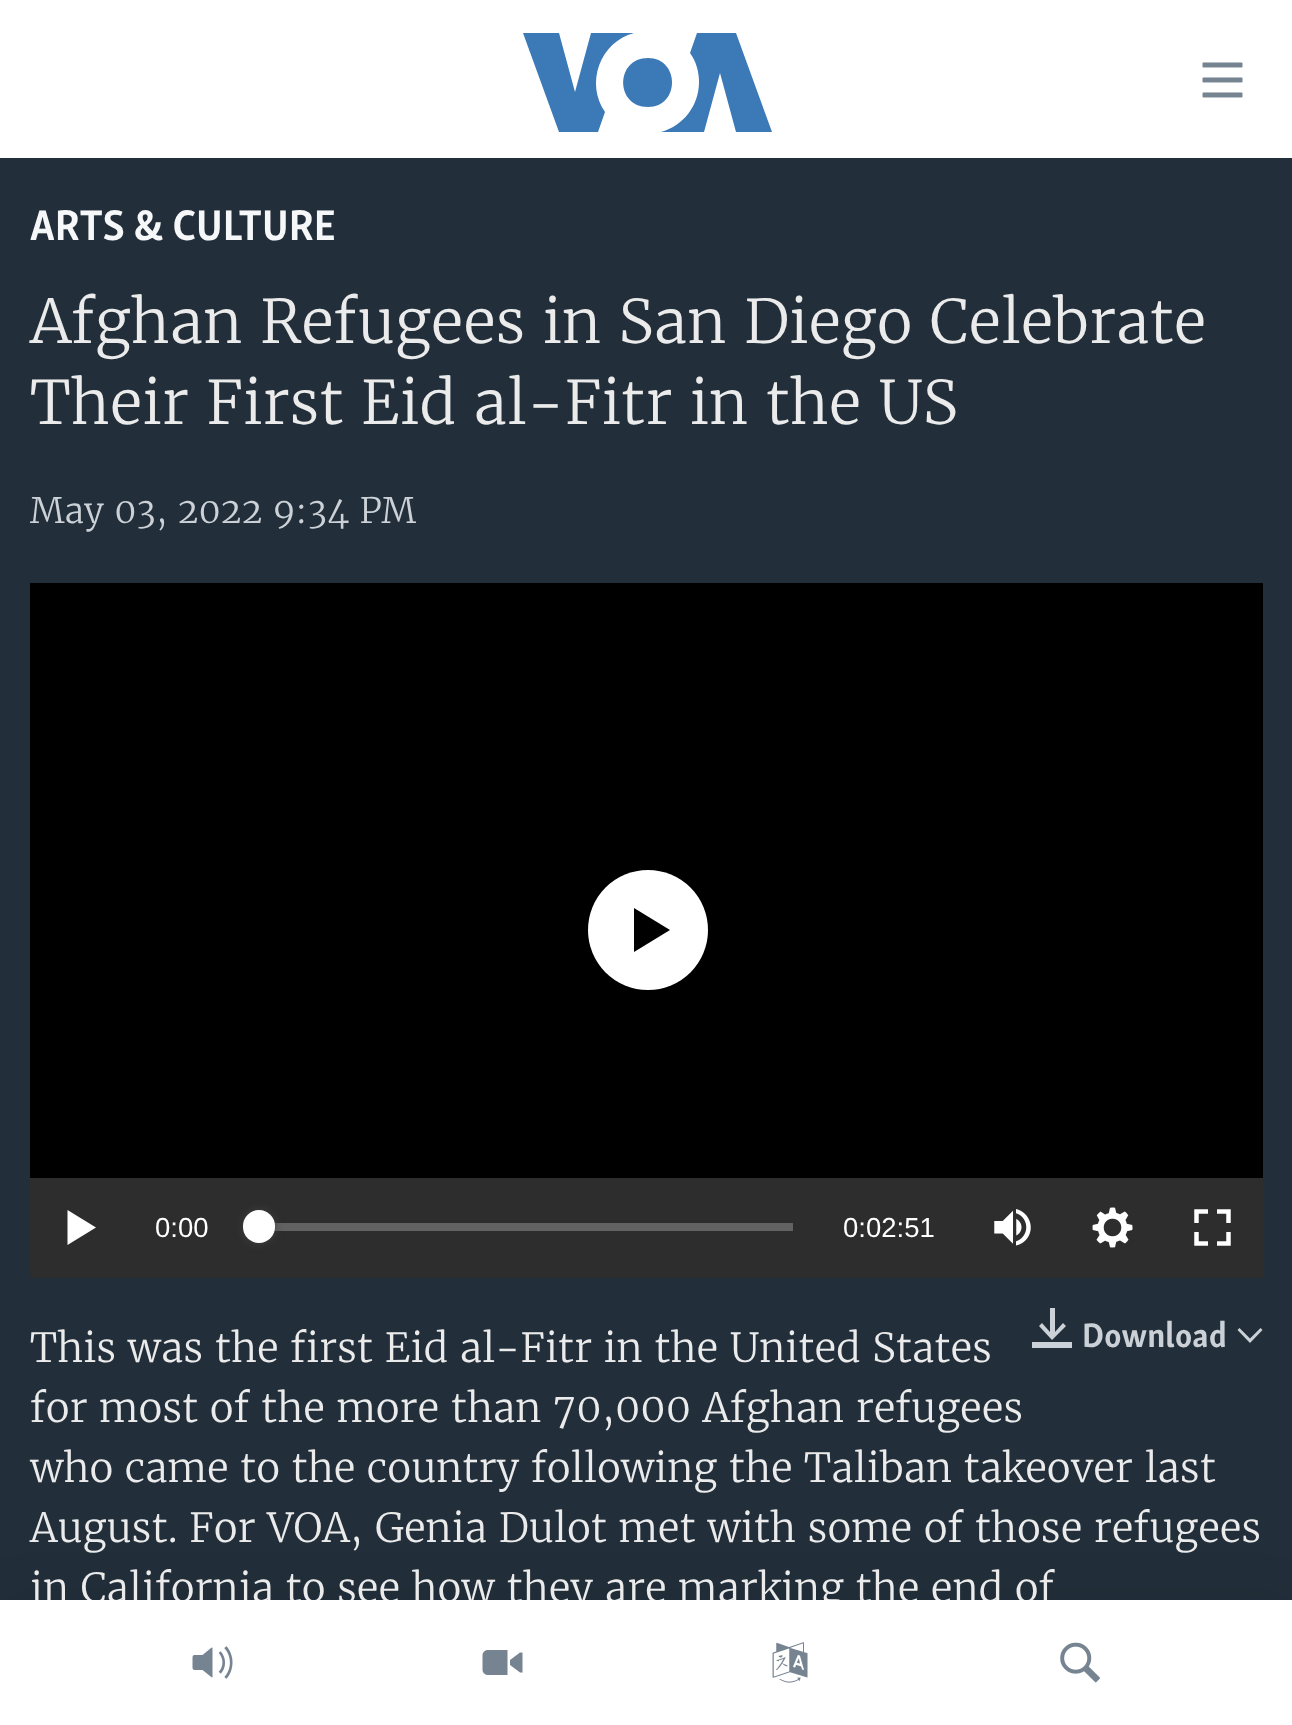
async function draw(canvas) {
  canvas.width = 1292;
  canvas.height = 1725;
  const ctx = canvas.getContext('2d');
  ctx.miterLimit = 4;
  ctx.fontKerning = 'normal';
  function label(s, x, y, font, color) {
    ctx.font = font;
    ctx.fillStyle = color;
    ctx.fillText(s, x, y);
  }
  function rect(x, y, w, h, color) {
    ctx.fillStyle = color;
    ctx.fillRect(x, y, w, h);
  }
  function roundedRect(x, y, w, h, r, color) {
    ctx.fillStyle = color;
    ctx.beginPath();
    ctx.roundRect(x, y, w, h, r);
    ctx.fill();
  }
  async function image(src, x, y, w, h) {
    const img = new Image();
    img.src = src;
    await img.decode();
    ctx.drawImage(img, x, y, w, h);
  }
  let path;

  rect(0, 0, 1292, 1725, '#222f3a');
  rect(0, 0, 1292, 158, '#fff');
  ctx.fillStyle = '#3b79b7';
  path = new Path2D('M605 112L598 132H559L523 33H559L575 92L591 33H634C600 42 585 83 605 112ZM648 58C615 58 615 107 648 107C680 107 680 58 648 58ZM699 82C699 106 683 126 661 132H704L720 73L736 132H772L736 33H697L690 53C696 61 699 72 699 82Z');
  ctx.fill(path);
  await image('assets/img1.png', 1202, 62, 41, 36);
  ctx.fillStyle = '#0000001a';
  ctx.filter = 'blur(25px)';
  ctx.beginPath();
  ctx.rect(0, 1600, 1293, 125);
  ctx.fill();
  ctx.filter = 'none';
  label('in California to see how they are marking the end of', 30, 1602, '300 40px Merriweather', '#ebebeb');
  rect(0, 1600, 1292, 125, '#fff');
  await image('assets/img2.png', 192, 1646, 41, 33);
  await image('assets/img3.png', 482, 1650, 41, 25);
  await image('assets/img4.png', 772, 1642, 36, 41);
  await image('assets/img5.png', 1060, 1642, 40, 41);
  label('ARTS & CULTURE', 30, 240, 'bold 44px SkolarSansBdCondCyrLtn', '#f6f7f8');
  label('Afghan Refugees in San Diego Celebrate', 30, 343, '300 60px Merriweather', '#ebebeb');
  label('Their First Eid al-Fitr in the US', 30, 424, '300 60px Merriweather', '#ebebeb');
  label('May 03, 2022 9:34 PM', 30, 523, '300 35px Merriweather', '#cbd1d6');
  rect(30, 583, 1233, 595, '#000');
  ctx.fillStyle = '#fff';
  ctx.beginPath();
  ctx.arc(648, 930, 60, 0, 2 * Math.PI);
  ctx.fill();
  ctx.fillStyle = '#000';
  path = new Path2D('M634 952L670 930L634 908Z');
  ctx.fill(path);
  rect(30, 1178, 1233, 100, '#2d2d2d');
  ctx.fillStyle = '#fff';
  path = new Path2D('M67.5 1245L96 1227.5L67.5 1210Z');
  ctx.fill(path);
  label('0:00', 155, 1237, '27.5px Liberation Sans', '#fff');
  rect(274, 1223, 519, 8, '#626262');
  ctx.fillStyle = '#414144';
  ctx.filter = 'blur(4px)';
  ctx.beginPath();
  ctx.roundRect(243, 1210, 32, 33, 16);
  ctx.fill();
  ctx.filter = 'none';
  roundedRect(243, 1210, 32, 33, 16, '#fff');
  label('0:02:51', 843, 1237, '27.5px Liberation Sans', '#fff');
  await image('assets/img6.png', 994, 1209, 37, 37);
  await image('assets/img7.png', 1092, 1207, 41, 41);
  await image('assets/img8.png', 1194, 1209, 37, 37);
  ctx.fillStyle = '#cbd1d6';
  path = new Path2D('M1072 1342V1348H1032V1342ZM1066 1326L1063 1323L1055 1332V1308H1050V1332L1042 1323L1039 1326L1052 1340Z');
  ctx.fill(path);
  label('Download', 1082, 1347, 'bold 35px SkolarSansBdCondCyrLtn', '#cbd1d6');
  path = new Path2D('M1237.5 1330L1250 1343L1262.5 1330L1260.5 1328L1250 1338.5L1239.5 1328Z');
  ctx.fill(path);
  label('This was the first Eid al-Fitr in the United States', 30, 1362, '300 40px Merriweather', '#ebebeb');
  label('for most of the more than 70,000 Afghan refugees', 30, 1422, '300 40px Merriweather', '#ebebeb');
  label('who came to the country following the Taliban takeover last', 30, 1482, '300 40px Merriweather', '#ebebeb');
  label('August. For VOA, Genia Dulot met with some of those refugees', 30, 1542, '300 40px Merriweather', '#ebebeb');
}

draw(document.querySelector('canvas'));
